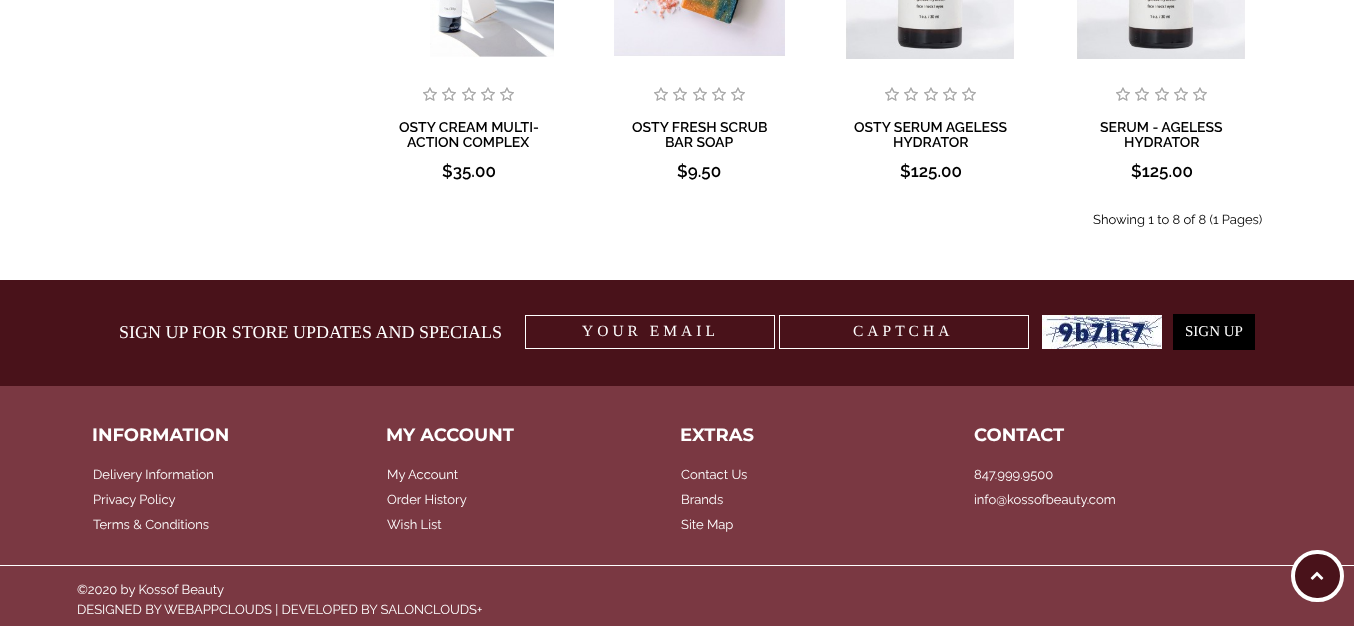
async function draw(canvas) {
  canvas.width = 1354;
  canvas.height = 626;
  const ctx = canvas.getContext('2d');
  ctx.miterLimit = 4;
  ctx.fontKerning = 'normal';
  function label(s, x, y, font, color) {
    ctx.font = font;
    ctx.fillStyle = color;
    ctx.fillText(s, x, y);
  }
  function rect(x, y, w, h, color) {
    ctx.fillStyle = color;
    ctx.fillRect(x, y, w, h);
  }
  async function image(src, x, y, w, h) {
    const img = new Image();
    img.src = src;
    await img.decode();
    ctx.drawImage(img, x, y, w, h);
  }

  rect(0, 0, 1354, 626, '#fff');
  await image('assets/img1.png', 430, 0, 124, 57);
  await image('assets/img2.png', 423, 87, 14, 14);
  await image('assets/img3.png', 423, 87, 14, 14);
  await image('assets/img2.png', 442, 87, 14, 14);
  await image('assets/img3.png', 442, 87, 14, 14);
  await image('assets/img2.png', 462, 87, 14, 14);
  await image('assets/img3.png', 462, 87, 14, 14);
  await image('assets/img2.png', 481, 87, 14, 14);
  await image('assets/img3.png', 481, 87, 14, 14);
  await image('assets/img2.png', 500, 87, 14, 14);
  await image('assets/img3.png', 500, 87, 14, 14);
  label('OSTY CREAM MULTI-', 399, 132, '600 14px Raleway', '#000');
  label('ACTION COMPLEX', 407, 147, '600 14px Raleway', '#000');
  label('$35.00', 442, 177, '600 17px Raleway', '#000');
  await image('assets/img4.png', 614, 0, 171, 56);
  await image('assets/img2.png', 654, 87, 14, 14);
  await image('assets/img3.png', 654, 87, 14, 14);
  await image('assets/img2.png', 673, 87, 14, 14);
  await image('assets/img3.png', 673, 87, 14, 14);
  await image('assets/img2.png', 693, 87, 14, 14);
  await image('assets/img3.png', 693, 87, 14, 14);
  await image('assets/img2.png', 712, 87, 14, 14);
  await image('assets/img3.png', 712, 87, 14, 14);
  await image('assets/img2.png', 731, 87, 14, 14);
  await image('assets/img3.png', 731, 87, 14, 14);
  label('OSTY FRESH SCRUB', 632, 132, '600 14px Raleway', '#000');
  label('BAR SOAP', 665, 147, '600 14px Raleway', '#000');
  label('$9.50', 677, 177, '600 17px Raleway', '#000');
  await image('assets/img5.png', 846, 0, 168, 59);
  await image('assets/img2.png', 885, 87, 14, 14);
  await image('assets/img3.png', 885, 87, 14, 14);
  await image('assets/img2.png', 904, 87, 14, 14);
  await image('assets/img3.png', 904, 87, 14, 14);
  await image('assets/img2.png', 924, 87, 14, 14);
  await image('assets/img3.png', 924, 87, 14, 14);
  await image('assets/img2.png', 943, 87, 14, 14);
  await image('assets/img3.png', 943, 87, 14, 14);
  await image('assets/img2.png', 962, 87, 14, 14);
  await image('assets/img3.png', 962, 87, 14, 14);
  label('OSTY SERUM AGELESS', 854, 132, '600 14px Raleway', '#000');
  label('HYDRATOR', 893, 147, '600 14px Raleway', '#000');
  label('$125.00', 900, 177, '600 17px Raleway', '#000');
  await image('assets/img5.png', 1077, 0, 168, 59);
  await image('assets/img2.png', 1116, 87, 14, 14);
  await image('assets/img3.png', 1116, 87, 14, 14);
  await image('assets/img2.png', 1135, 87, 14, 14);
  await image('assets/img3.png', 1135, 87, 14, 14);
  await image('assets/img2.png', 1155, 87, 14, 14);
  await image('assets/img3.png', 1155, 87, 14, 14);
  await image('assets/img2.png', 1174, 87, 14, 14);
  await image('assets/img3.png', 1174, 87, 14, 14);
  await image('assets/img2.png', 1193, 87, 14, 14);
  await image('assets/img3.png', 1193, 87, 14, 14);
  label('SERUM - AGELESS', 1100, 132, '600 14px Raleway', '#000');
  label('HYDRATOR', 1124, 147, '600 14px Raleway', '#000');
  label('$125.00', 1131, 177, '600 17px Raleway', '#000');
  label('Showing 1 to 8 of 8 (1 Pages)', 1093, 224, '13px Raleway', '#000');
  rect(0, 386, 1354, 240, '#7a3842');
  rect(0, 280, 1354, 106, '#49121a');
  label('SIGN UP FOR STORE UPDATES AND SPECIALS', 119, 338, '18px Liberation Serif', '#fff');
  ctx.strokeStyle = '#fff';
  ctx.strokeRect(525.5, 315.5, 249, 33);
  ctx.letterSpacing = '4px';
  label('YOUR EMAIL', 582, 336, '15.5px Liberation Serif', '#fff');
  ctx.strokeRect(779.5, 315.5, 249, 33);
  label('CAPTCHA', 853, 336, '15.5px Liberation Serif', '#fff');
  await image('assets/img6.png', 1042, 315, 120, 34);
  rect(1173, 314, 82, 36, '#000');
  ctx.letterSpacing = '0px';
  label('SIGN UP', 1185, 336, '15px Liberation Serif', '#fff');
  label('INFORMATION', 92, 441, 'bold 18px Montserrat', '#fff');
  label('Delivery Information', 93, 479, '13px Raleway', '#fff');
  label('Privacy Policy', 93, 504, '13px Raleway', '#fff');
  label('Terms & Conditions', 93, 529, '13px Raleway', '#fff');
  label('MY ACCOUNT', 386, 441, 'bold 18px Montserrat', '#fff');
  label('My Account', 387, 479, '13px Raleway', '#fff');
  label('Order History', 387, 504, '13px Raleway', '#fff');
  label('Wish List', 387, 529, '13px Raleway', '#fff');
  label('EXTRAS', 680, 441, 'bold 18px Montserrat', '#fff');
  label('Contact Us', 681, 479, '13px Raleway', '#fff');
  label('Brands', 681, 504, '13px Raleway', '#fff');
  label('Site Map', 681, 529, '13px Raleway', '#fff');
  label('CONTACT', 974, 441, 'bold 18px Montserrat', '#fff');
  label('847.999.9500', 974, 479, '13px Raleway', '#fff');
  label('info@kossofbeauty.com', 974, 504, '13px Raleway', '#fff');
  rect(0, 565, 1354, 1, '#fff');
  label('©2020 by Kossof Beauty', 77, 594, '13px Raleway', '#fff');
  label('DESIGNED BY', 77, 614, '13px Raleway', '#fff');
  label('WEBAPPCLOUDS | DEVELOPED BY SALONCLOUDS+', 164, 614, '13px Raleway', '#fff');
  ctx.fillStyle = '#49121a';
  ctx.beginPath();
  ctx.roundRect(1293, 552, 49, 48, 24);
  ctx.fill();
  ctx.lineWidth = 4;
  ctx.stroke();
  await image('assets/img7.png', 1310, 571, 14, 9);
}

draw(document.querySelector('canvas'));
